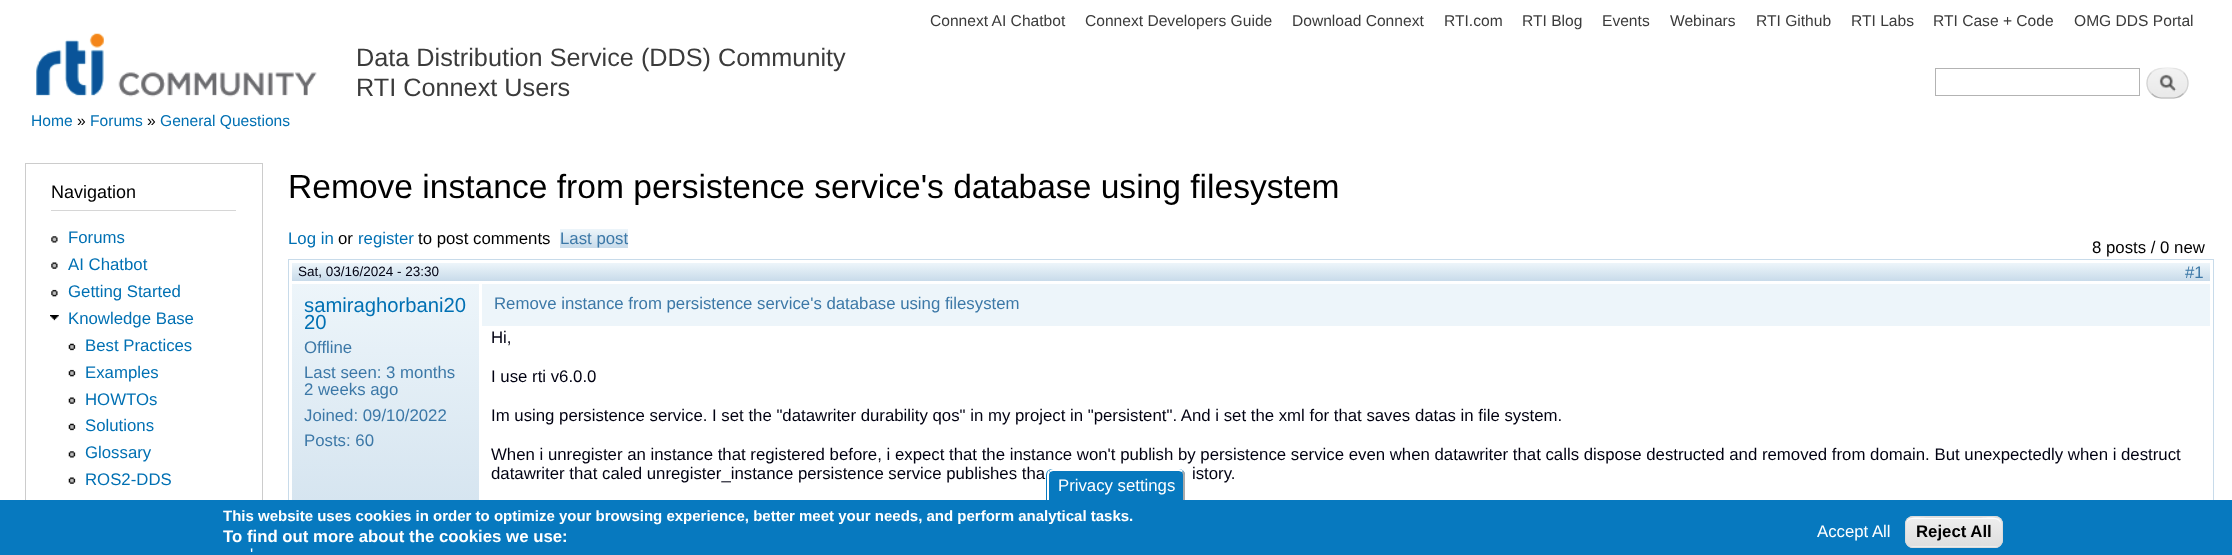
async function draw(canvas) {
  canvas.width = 2232;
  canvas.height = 555;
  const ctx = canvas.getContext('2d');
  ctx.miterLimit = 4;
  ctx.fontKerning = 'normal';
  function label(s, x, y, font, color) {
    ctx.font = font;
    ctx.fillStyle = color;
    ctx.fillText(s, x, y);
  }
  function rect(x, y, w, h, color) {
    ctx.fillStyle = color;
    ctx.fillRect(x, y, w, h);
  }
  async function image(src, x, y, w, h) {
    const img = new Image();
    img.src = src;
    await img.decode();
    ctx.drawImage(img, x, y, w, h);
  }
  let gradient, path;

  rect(0, 0, 2232, 555, '#fff');
  label('Connext AI Chatbot', 930, 26, '15.6px Liberation Sans', '#3b3b3b');
  label('Connext Developers Guide', 1085, 26, '15.6px Liberation Sans', '#3b3b3b');
  label('Download Connext', 1292, 26, '15.6px Liberation Sans', '#3b3b3b');
  label('RTI.com', 1444, 26, '15.6px Liberation Sans', '#3b3b3b');
  label('RTI Blog', 1522, 26, '15.6px Liberation Sans', '#3b3b3b');
  label('Events', 1602, 26, '15.6px Liberation Sans', '#3b3b3b');
  label('Webinars', 1670, 26, '15.6px Liberation Sans', '#3b3b3b');
  label('RTI Github', 1756, 26, '15.6px Liberation Sans', '#3b3b3b');
  label('RTI Labs', 1851, 26, '15.6px Liberation Sans', '#3b3b3b');
  label('RTI Case + Code', 1933, 26, '15.6px Liberation Sans', '#3b3b3b');
  label('OMG DDS Portal', 2074, 26, '15.6px Liberation Sans', '#3b3b3b');
  await image('assets/img1.png', 36, 33, 281, 64);
  label('Data Distribution Service (DDS) Community', 356, 66, '25.25px Liberation Sans', '#3b3b3b');
  label('RTI Connext Users', 356, 96, '25.25px Liberation Sans', '#3b3b3b');
  ctx.strokeStyle = '#b3b3b3';
  ctx.strokeRect(1935.5, 68.5, 204, 27);
  await image('assets/img2.png', 2146, 69, 43, 30);
  path = new Path2D('M2151.5 72.5C2156 68 2161.5 68 2167.5 68C2173.5 68 2179 68 2183.5 72.5');
  ctx.strokeStyle = '#e4e4e4';
  ctx.lineWidth = 1.2;
  ctx.stroke(path);
  path = new Path2D('M2183.5 72.5C2189.5 78.5 2189.5 88 2183.5 93.5');
  ctx.strokeStyle = '#d2d2d2';
  ctx.stroke(path);
  path = new Path2D('M2183.5 93.5C2179 98.5 2173.5 98 2167.5 98C2161.5 98 2156 98.5 2151.5 93.5');
  ctx.strokeStyle = '#b4b4b4';
  ctx.stroke(path);
  path = new Path2D('M2151.5 93.5C2145.5 88 2145.5 78.5 2151.5 72.5');
  ctx.strokeStyle = '#d2d2d2';
  ctx.stroke(path);
  label('Home', 31, 126, '15.6px Liberation Sans', '#0070b3');
  label('»', 77, 126, '15.6px Liberation Sans', '#000');
  label('Forums', 90, 126, '15.6px Liberation Sans', '#0070b3');
  label('»', 147, 126, '15.6px Liberation Sans', '#000');
  label('General Questions', 160, 126, '15.6px Liberation Sans', '#0070b3');
  ctx.strokeStyle = '#ccc';
  ctx.lineWidth = 1;
  ctx.strokeRect(25.5, 163.5, 237, 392);
  rect(51, 210, 185, 1, '#d6d6d6');
  label('Navigation', 51, 198, '18px Liberation Sans', '#000');
  await image('assets/img3.png', 51, 236, 7, 7);
  label('Forums', 68, 243, '16.8px Liberation Sans', '#0070b3');
  await image('assets/img4.png', 51, 262, 7, 7);
  label('AI Chatbot', 68, 270, '16.8px Liberation Sans', '#0070b3');
  await image('assets/img5.png', 51, 289, 7, 8);
  label('Getting Started', 68, 297, '16.8px Liberation Sans', '#0070b3');
  await image('assets/img6.png', 50, 315, 9, 6);
  label('Knowledge Base', 68, 324, '16.8px Liberation Sans', '#0070b3');
  await image('assets/img7.png', 68, 343, 8, 8);
  label('Best Practices', 85, 351, '16.8px Liberation Sans', '#0070b3');
  await image('assets/img8.png', 68, 369, 8, 8);
  label('Examples', 85, 378, '16.8px Liberation Sans', '#0070b3');
  await image('assets/img9.png', 68, 397, 8, 7);
  label('HOWTOs', 85, 405, '16.8px Liberation Sans', '#0070b3');
  await image('assets/img7.png', 68, 423, 8, 8);
  label('Solutions', 85, 431, '16.8px Liberation Sans', '#0070b3');
  await image('assets/img10.png', 68, 451, 8, 7);
  label('Glossary', 85, 458, '16.8px Liberation Sans', '#0070b3');
  await image('assets/img9.png', 68, 477, 8, 7);
  label('ROS2-DDS', 85, 485, '16.8px Liberation Sans', '#0070b3');
  label('Remove instance from persistence service\'s database using filesystem', 288, 198, '33.6px Liberation Sans', '#000');
  label('Log in', 288, 244, '16.8px Liberation Sans', '#0070b3');
  label('or', 338, 244, '16.8px Liberation Sans', '#000');
  label('register', 358, 244, '16.8px Liberation Sans', '#0070b3');
  label('to post comments', 418, 244, '16.8px Liberation Sans', '#000');
  gradient = ctx.createLinearGradient(560, 229, 560, 248);
  gradient.addColorStop(0, '#edf5fa');
  gradient.addColorStop(1, '#c8dbea');
  ctx.fillStyle = gradient;
  ctx.fillRect(560, 229, 68, 19);
  label('Last post', 560, 244, '16.8px Liberation Sans', '#3c78a7');
  label('8 posts / 0 new', 2092, 253, '16.8px Liberation Sans', '#000');
  ctx.strokeStyle = '#c8dbea';
  ctx.strokeRect(288.5, 259.5, 1925, 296);
  gradient = ctx.createLinearGradient(291, 263, 291, 281);
  gradient.addColorStop(0, '#edf5fa');
  gradient.addColorStop(1, '#c8dbea');
  ctx.fillStyle = gradient;
  ctx.fillRect(292, 263, 1918, 18);
  label('Sat, 03/16/2024 - 23:30', 298, 276, '13.5px Liberation Sans', '#000111');
  label('#1', 2185, 278, '16.8px Liberation Sans', '#3c78a7');
  gradient = ctx.createLinearGradient(291, 284, 291, 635);
  gradient.addColorStop(0, '#edf5fa');
  gradient.addColorStop(1, '#c8dbea');
  ctx.fillStyle = gradient;
  ctx.fillRect(292, 284, 187, 216);
  label('samiraghorbani20', 304, 312, '20.25px Liberation Sans', '#0070b3');
  label('20', 304, 329, '20.25px Liberation Sans', '#0070b3');
  label('Offline', 304, 353, '16.8px Liberation Sans', '#3c78a7');
  label('Last seen: 3 months', 304, 378, '16.8px Liberation Sans', '#3c78a7');
  label('2 weeks ago', 304, 395, '16.8px Liberation Sans', '#3c78a7');
  label('Joined: 09/10/2022', 304, 421, '16.8px Liberation Sans', '#3c78a7');
  label('Posts: 60', 304, 446, '16.8px Liberation Sans', '#3c78a7');
  rect(482, 284, 1728, 42, '#edf5fa');
  label('Remove instance from persistence service\'s database using filesystem', 494, 309, '16.8px Liberation Sans', '#3c78a7');
  label('Hi,', 491, 343, '16.8px Liberation Sans', '#000111');
  label('I use rti v6.0.0', 491, 382, '16.8px Liberation Sans', '#000111');
  label('Im using persistence service. I set the "datawriter durability qos" in my project in "persistent". And i set the xml for that saves datas in file system.', 491, 421, '16.8px Liberation Sans', '#000111');
  label('When i unregister an instance that registered before, i expect that the instance won\'t publish by persistence service even when datawriter that calls dispose destructed and removed from domain. But unexpectedly when i destruct', 491, 460, '16.8px Liberation Sans', '#000111');
  label('datawriter that caled unregister_instance persistence service publishes tha', 491, 479, '16.8px Liberation Sans', '#000111');
  label('istory.', 1192, 479, '16.8px Liberation Sans', '#000111');
  rect(0, 500, 2232, 55, '#0779bf');
  ctx.beginPath();
  ctx.roundRect(1046, 469, 139, 31, [6, 6, 0, 0]);
  ctx.fill();
  ctx.fillStyle = '#fff';
  path = new Path2D('M1053 469H1179C1181 469 1182 470 1183 471L1182 472L1179 471H1053L1050 472L1049 471C1050 470 1051 469 1053 469Z');
  ctx.fill(path);
  ctx.fillStyle = '#aaa';
  path = new Path2D('M1183 500V475C1183 474 1182.5 473 1182 472.5L1183.5 471C1184.5 472 1185 473.5 1185 475V500Z');
  ctx.fill(path);
  ctx.fillStyle = '#fff';
  path = new Path2D('M1047 500H1049V475C1049 474 1049.5 473 1050 472.5L1048.5 470.5C1047.5 472 1047 473.5 1047 475Z');
  ctx.fill(path);
  label('Privacy settings', 1058, 491, '16.75px Liberation Sans', '#fff');
  label('This website uses cookies in order to optimize your browsing experience, better meet your needs, and perform analytical tasks.', 223, 521, 'bold 15px Liberation Sans', '#fff');
  label('To find out more about the cookies we use:', 223, 542, 'bold 16.8px Liberation Sans', '#fff');
  label('\'', 250, 560, '16.75px Liberation Sans', '#fff');
  label('Accept All', 1817, 537, '16.75px Liberation Sans', '#fff');
  ctx.save();
  ctx.beginPath();
  ctx.roundRect(1905, 516, 98, 32, 8);
  ctx.clip();
  gradient = ctx.createLinearGradient(1954, 489, 1954, 518);
  gradient.addColorStop(0.05, '#ededed');
  gradient.addColorStop(1, '#dfdfdf');
  ctx.fillStyle = gradient;
  ctx.fillRect(1905, 516, 98, 2);
  gradient = ctx.createLinearGradient(1954, 518, 1954, 546);
  gradient.addColorStop(0.05, '#ededed');
  gradient.addColorStop(1, '#dfdfdf');
  ctx.fillStyle = gradient;
  ctx.fillRect(1905, 518, 98, 28);
  gradient = ctx.createLinearGradient(1954, 546, 1954, 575);
  gradient.addColorStop(0.05, '#ededed');
  gradient.addColorStop(1, '#dfdfdf');
  ctx.fillStyle = gradient;
  ctx.fillRect(1905, 546, 98, 2);
  ctx.restore();
  path = new Path2D('M1912 519H1995C1998 519 2001 522 2001 525C2001 515 1988 518 1981 518H1926C1919 518 1906 515 1906 525C1906 522 1909 519 1912 519Z');
  ctx.fill(path);
  ctx.beginPath();
  ctx.roundRect(1905.5, 516.5, 97, 31, 7.5);
  ctx.strokeStyle = '#dcdcdc';
  ctx.stroke();
  label('Reject All', 1916, 537, 'bold 16.75px Liberation Sans', '#000');
}

draw(document.querySelector('canvas'));
